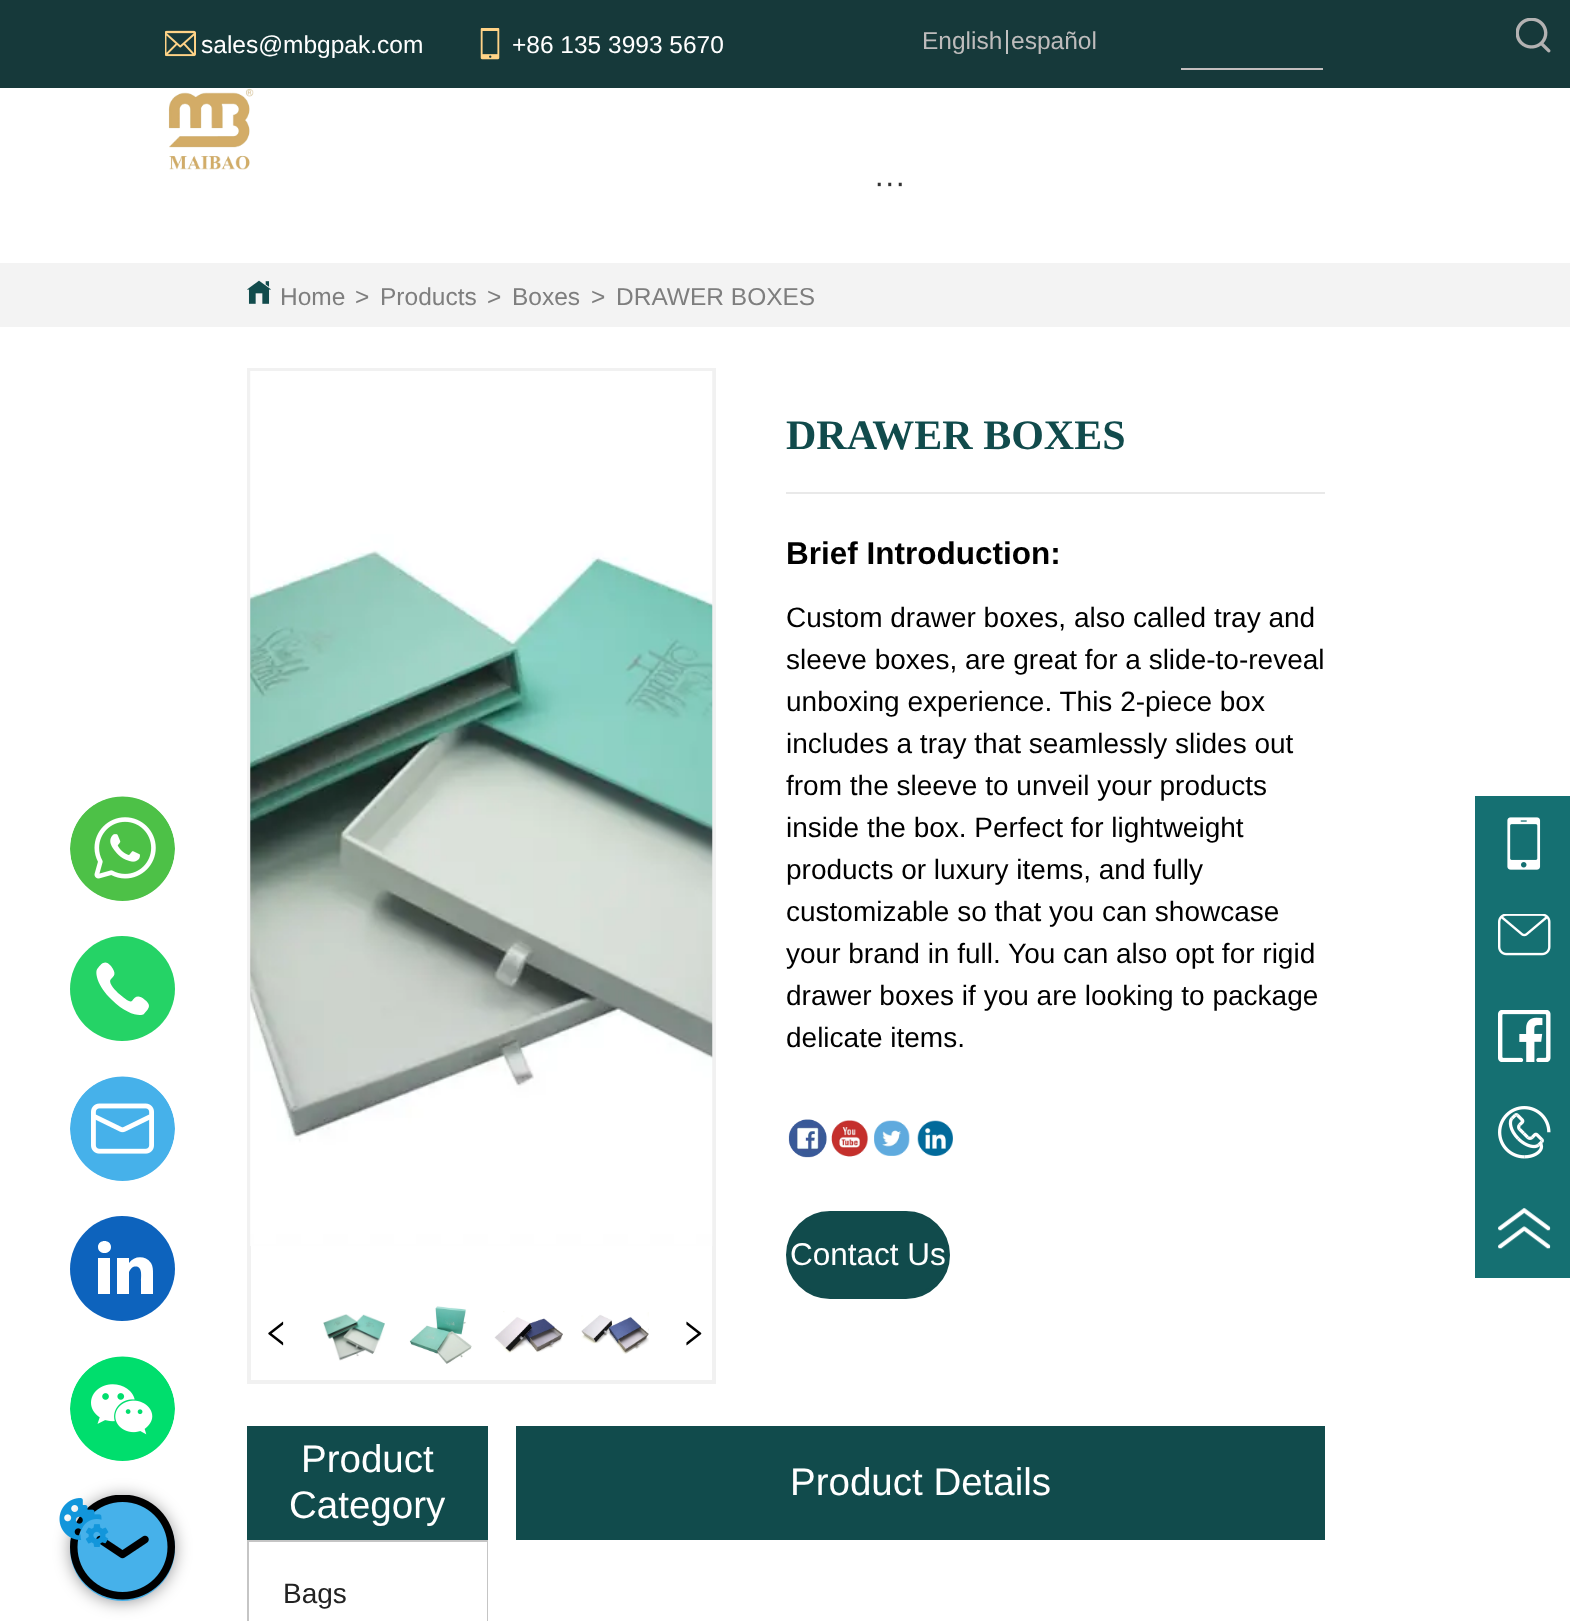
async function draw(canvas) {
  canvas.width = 1570;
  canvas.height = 1621;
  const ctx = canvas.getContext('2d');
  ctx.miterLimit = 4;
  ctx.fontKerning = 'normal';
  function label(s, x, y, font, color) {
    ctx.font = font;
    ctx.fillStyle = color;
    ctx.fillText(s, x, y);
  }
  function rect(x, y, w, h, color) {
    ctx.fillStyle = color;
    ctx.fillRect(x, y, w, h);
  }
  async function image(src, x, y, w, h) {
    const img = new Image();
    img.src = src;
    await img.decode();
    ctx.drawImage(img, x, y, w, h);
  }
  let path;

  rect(0, 0, 1570, 1621, '#fff');
  await image('assets/img1.png', 70, 796, 105, 105);
  ctx.fillStyle = '#25d366';
  path = new Path2D('M122 936C151 936 175 960 175 989C175 1018 151 1041 122 1041C94 1041 70 1018 70 989C70 960 94 936 122 936Z');
  ctx.fill(path);
  ctx.fillStyle = '#fff';
  path = new Path2D('M111 979C114 976 117 974 111 966C105 959 101 964 98 968C94 971 97 986 112 1000C126 1014 140 1017 144 1014C147 1010 153 1006 145 1000C138 994 135 997 132 1001C130 1003 124 998 118 993C113 988 108 982 111 979Z');
  ctx.fill(path);
  await image('assets/img2.png', 70, 1076, 105, 105);
  ctx.fillStyle = '#0d63bd';
  path = new Path2D('M122 1216C151 1216 175 1240 175 1269C175 1298 151 1321 122 1321C94 1321 70 1298 70 1269C70 1240 94 1216 122 1216Z');
  ctx.fill(path);
  ctx.fillStyle = '#fff';
  path = new Path2D('M110 1258V1294H98V1258ZM111 1247C111 1255 98 1255 98 1247C98 1239 111 1239 111 1247ZM153 1274V1294H141V1281C141 1276 143 1264 133 1267C131 1268 130 1270 129 1272V1294H117V1258H129V1263C134 1256 145 1255 151 1263C153 1266 153 1270 153 1274Z');
  ctx.fill(path);
  await image('assets/img3.png', 70, 1356, 105, 105);
  ctx.fillStyle = '#00000380';
  ctx.filter = 'blur(9px)';
  ctx.beginPath();
  ctx.roundRect(72, 1498, 101, 102, 50.5);
  ctx.fill();
  ctx.filter = 'none';
  ctx.fillStyle = '#46b1ea';
  ctx.beginPath();
  ctx.arc(122.5, 1548.5, 52.5, 0, 2 * Math.PI);
  ctx.fill();
  await image('assets/img4.png', 70, 1495, 105, 105);
  rect(0, 0, 1570, 88, '#16393a');
  await image('assets/img5.png', 165, 30, 31, 27);
  label('sales@mbgpak.com', 201, 53, '24.5px Liberation Sans', '#fff');
  await image('assets/img6.png', 480, 28, 20, 32);
  label('+86 135 3993 5670', 512, 53, '24.5px Liberation Sans', '#fff');
  label('English', 922, 49, '24.5px Liberation Sans', '#bebcbc');
  rect(1006, 30, 2, 24, '#c1c1c1');
  label('español', 1011, 49, '24.5px Liberation Sans', '#bebcbc');
  rect(1181, 68, 142, 2, '#c3bebe');
  await image('assets/img7.png', 1516, 18, 35, 35);
  await image('assets/img8.png', 168, 88, 86, 82);
  label('···', 874, 193, '31.5px Liberation Sans', '#333');
  rect(0, 263, 1570, 64, '#f3f3f3');
  await image('assets/img9.png', 247, 280, 24, 24);
  label('Home', 280, 305, '24.5px Liberation Sans', '#7e7e7e');
  label('>', 355, 305, '24.5px Liberation Sans', '#7e7e7e');
  label('Products', 380, 305, '24.5px Liberation Sans', '#7e7e7e');
  label('>', 487, 305, '24.5px Liberation Sans', '#7e7e7e');
  label('Boxes', 512, 305, '24.5px Liberation Sans', '#7e7e7e');
  label('>', 591, 305, '24.5px Liberation Sans', '#7e7e7e');
  label('DRAWER BOXES', 616, 305, '24.5px Liberation Sans', '#7e7e7e');
  ctx.strokeStyle = '#f1f1f1';
  ctx.lineWidth = 4;
  ctx.strokeRect(249, 370, 465, 1012);
  await image('assets/img10.png', 250, 371, 463, 875);
  await image('assets/img11.png', 268, 1321, 16, 25);
  await image('assets/img12.png', 323, 1314, 62, 47);
  await image('assets/img13.png', 409, 1306, 63, 58);
  await image('assets/img14.png', 494, 1311, 69, 42);
  await image('assets/img15.png', 581, 1312, 68, 42);
  await image('assets/img16.png', 686, 1321, 16, 25);
  label('DRAWER BOXES', 786, 449, 'bold 42px Liberation Serif', '#114b4c');
  rect(786, 492, 539, 2, '#e9e9e9');
  label('Brief Introduction:', 786, 564, 'bold 31.5px Liberation Sans', '#000');
  label('Custom drawer boxes, also called tray and', 786, 627, '28px Liberation Sans', '#000');
  label('sleeve boxes, are great for a slide-to-reveal', 786, 669, '28px Liberation Sans', '#000');
  label('unboxing experience. This 2-piece box', 786, 711, '28px Liberation Sans', '#000');
  label('includes a tray that seamlessly slides out', 786, 753, '28px Liberation Sans', '#000');
  label('from the sleeve to unveil your products', 786, 795, '28px Liberation Sans', '#000');
  label('inside the box. Perfect for lightweight', 786, 837, '28px Liberation Sans', '#000');
  label('products or luxury items, and fully', 786, 879, '28px Liberation Sans', '#000');
  label('customizable so that you can showcase', 786, 921, '28px Liberation Sans', '#000');
  label('your brand in full. You can also opt for rigid', 786, 963, '28px Liberation Sans', '#000');
  label('drawer boxes if you are looking to package', 786, 1005, '28px Liberation Sans', '#000');
  label('delicate items.', 786, 1047, '28px Liberation Sans', '#000');
  await image('assets/img17.png', 788, 1119, 39, 39);
  await image('assets/img18.png', 831, 1120, 38, 37);
  await image('assets/img19.png', 874, 1120, 36, 36);
  await image('assets/img20.png', 917, 1120, 36, 36);
  ctx.fillStyle = '#114b4c';
  ctx.beginPath();
  ctx.roundRect(788, 1213, 160, 84, 42);
  ctx.fill();
  ctx.strokeStyle = '#114b4c';
  ctx.stroke();
  label('Contact Us', 790, 1265, '31.5px Liberation Sans', '#fff');
  rect(247, 1426, 241, 114, '#114b4c');
  label('Product', 301, 1472, '38.5px Liberation Sans', '#fff');
  label('Category', 289, 1518, '38.5px Liberation Sans', '#fff');
  ctx.strokeStyle = '#c5c5c5';
  ctx.lineWidth = 2;
  ctx.strokeRect(248, 1541, 239, 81);
  rect(486, 1542, 1, 79, '#fff');
  label('Bags', 283, 1603, '28px Liberation Sans', '#222');
  rect(516, 1426, 809, 114, '#114b4c');
  label('Product Details', 790, 1495, '38.5px Liberation Sans', '#fff');
  rect(1475, 796, 95, 482, '#157072');
  await image('assets/img21.png', 1507, 817, 34, 53);
  await image('assets/img22.png', 1498, 914, 53, 42);
  await image('assets/img23.png', 1498, 1010, 53, 52);
  await image('assets/img24.png', 1498, 1106, 53, 53);
  await image('assets/img25.png', 1498, 1208, 53, 41);
  await image('assets/img26.png', 59, 1498, 50, 49);
}

draw(document.querySelector('canvas'));
